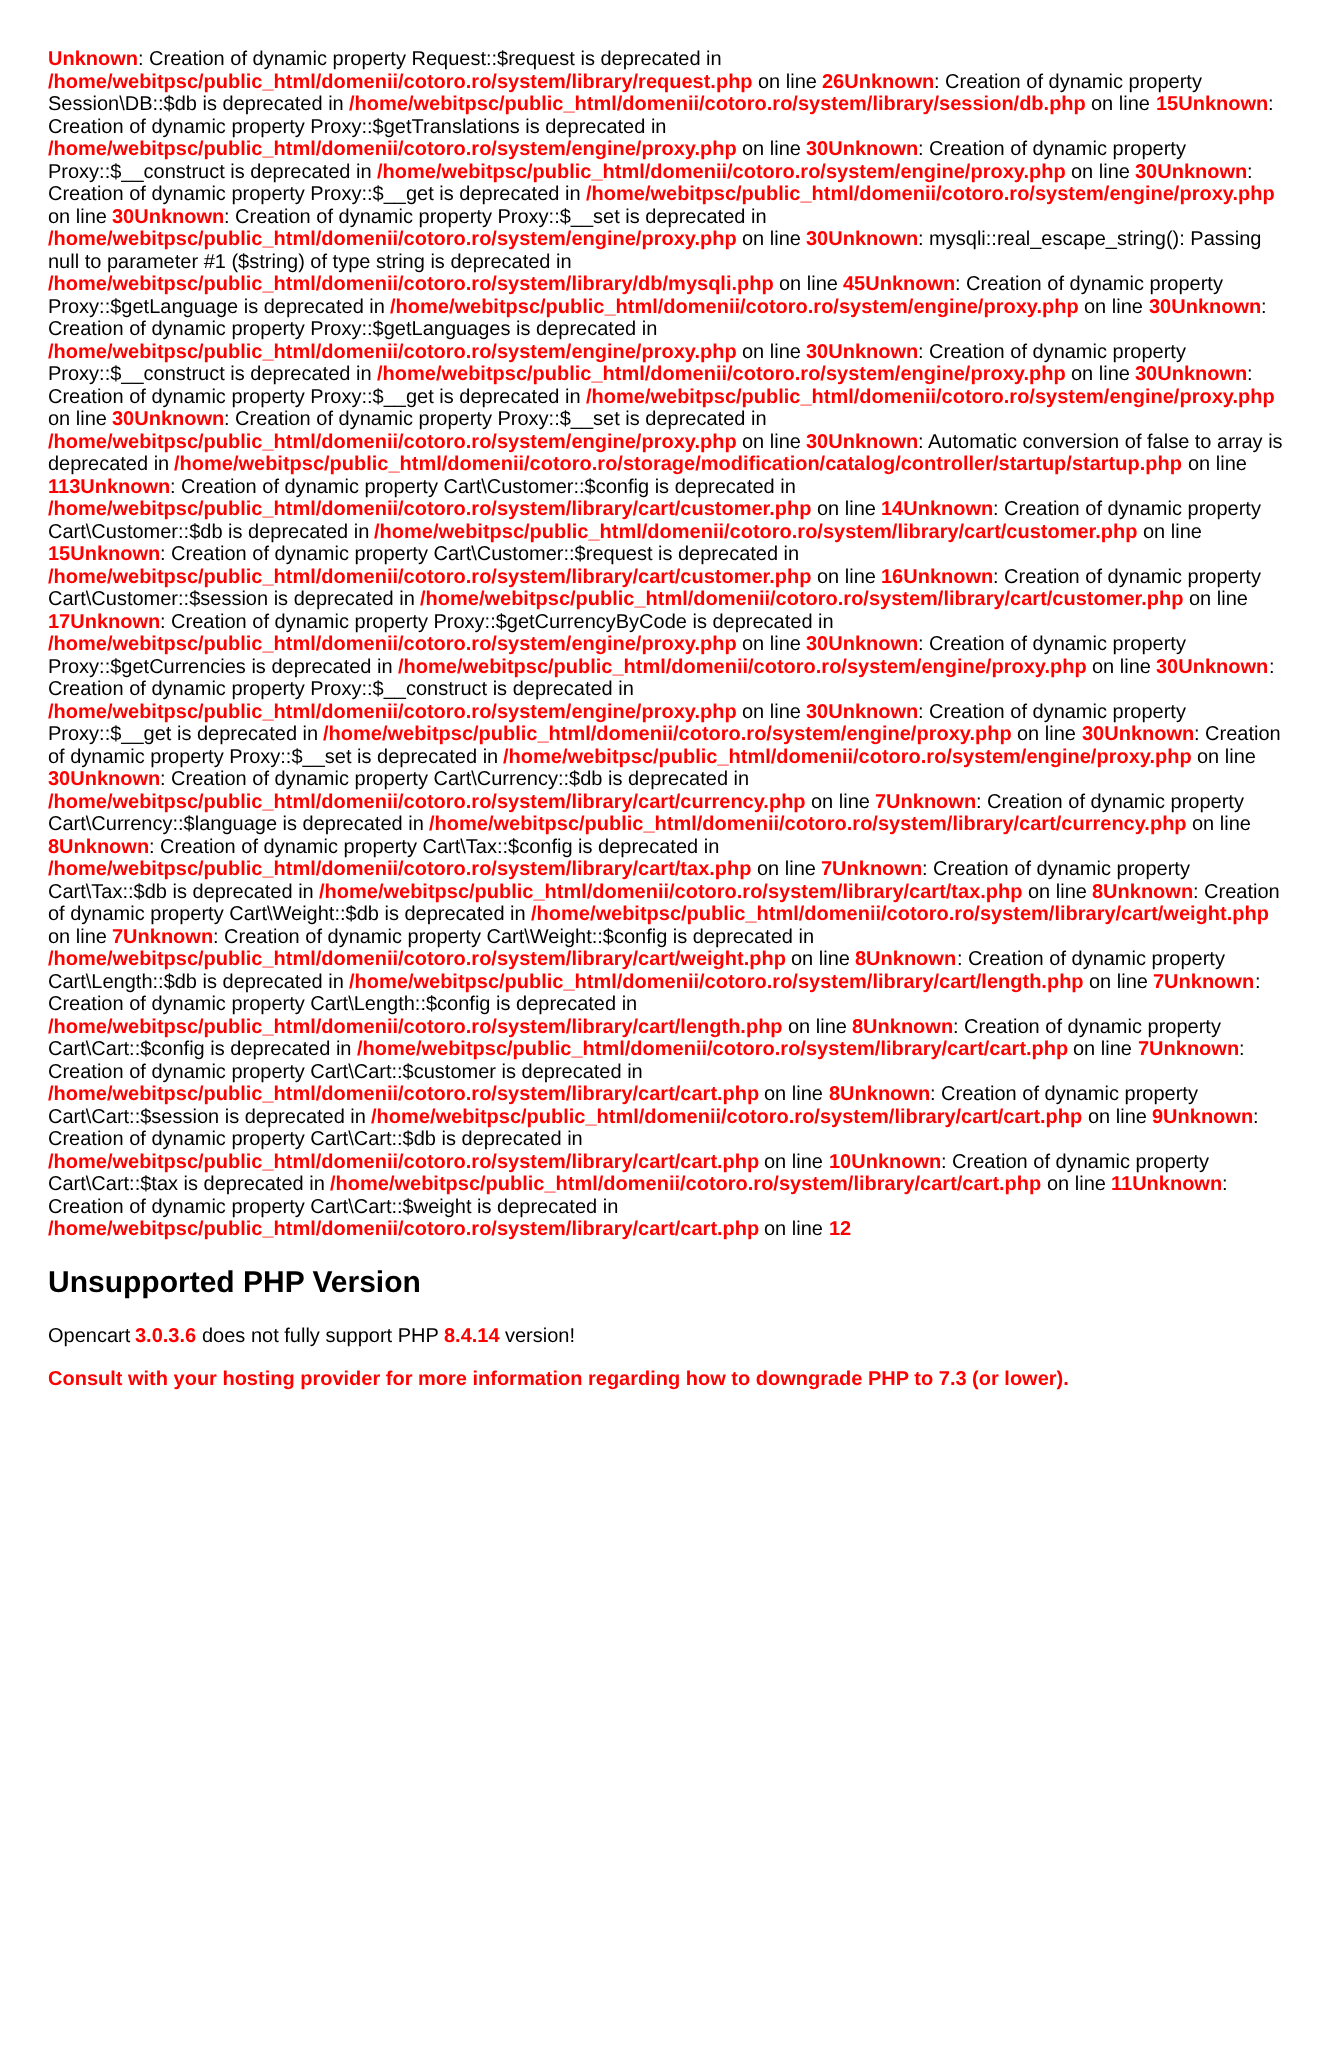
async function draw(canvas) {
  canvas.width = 1343;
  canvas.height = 2060;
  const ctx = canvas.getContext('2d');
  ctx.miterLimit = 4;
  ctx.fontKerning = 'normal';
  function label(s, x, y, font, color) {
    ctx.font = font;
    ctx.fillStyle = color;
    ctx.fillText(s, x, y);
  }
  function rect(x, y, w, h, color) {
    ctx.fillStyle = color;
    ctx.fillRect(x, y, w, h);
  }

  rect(0, 0, 1343, 2060, '#fff');
  label('Unknown', 48, 65, 'bold 20px Liberation Sans', '#f00');
  label(': Creation of dynamic property Request::$request is deprecated in', 138, 65, '20px Liberation Sans', '#000');
  label('/home/webitpsc/public_html/domenii/cotoro.ro/system/library/request.php', 48, 88, 'bold 20px Liberation Sans', '#f00');
  label('on line', 758, 88, '20px Liberation Sans', '#000');
  label('26Unknown', 822, 88, 'bold 20px Liberation Sans', '#f00');
  label(': Creation of dynamic property', 934, 88, '20px Liberation Sans', '#000');
  label('Session\\DB::$db is deprecated in', 48, 110, '20px Liberation Sans', '#000');
  label('/home/webitpsc/public_html/domenii/cotoro.ro/system/library/session/db.php', 349, 110, 'bold 20px Liberation Sans', '#f00');
  label('on line', 1091, 110, '20px Liberation Sans', '#000');
  label('15Unknown', 1156, 110, 'bold 20px Liberation Sans', '#f00');
  label(':', 1268, 110, '20px Liberation Sans', '#000');
  label('Creation of dynamic property Proxy::$getTranslations is deprecated in', 48, 133, '20px Liberation Sans', '#000');
  label('/home/webitpsc/public_html/domenii/cotoro.ro/system/engine/proxy.php', 48, 155, 'bold 20px Liberation Sans', '#f00');
  label('on line', 742, 155, '20px Liberation Sans', '#000');
  label('30Unknown', 806, 155, 'bold 20px Liberation Sans', '#f00');
  label(': Creation of dynamic property', 918, 155, '20px Liberation Sans', '#000');
  label('Proxy::$__construct is deprecated in', 48, 178, '20px Liberation Sans', '#000');
  label('/home/webitpsc/public_html/domenii/cotoro.ro/system/engine/proxy.php', 377, 178, 'bold 20px Liberation Sans', '#f00');
  label('on line', 1071, 178, '20px Liberation Sans', '#000');
  label('30Unknown', 1135, 178, 'bold 20px Liberation Sans', '#f00');
  label(':', 1247, 178, '20px Liberation Sans', '#000');
  label('Creation of dynamic property Proxy::$__get is deprecated in', 48, 200, '20px Liberation Sans', '#000');
  label('/home/webitpsc/public_html/domenii/cotoro.ro/system/engine/proxy.php', 586, 200, 'bold 20px Liberation Sans', '#f00');
  label('on line', 48, 223, '20px Liberation Sans', '#000');
  label('30Unknown', 112, 223, 'bold 20px Liberation Sans', '#f00');
  label(': Creation of dynamic property Proxy::$__set is deprecated in', 224, 223, '20px Liberation Sans', '#000');
  label('/home/webitpsc/public_html/domenii/cotoro.ro/system/engine/proxy.php', 48, 245, 'bold 20px Liberation Sans', '#f00');
  label('on line', 742, 245, '20px Liberation Sans', '#000');
  label('30Unknown', 806, 245, 'bold 20px Liberation Sans', '#f00');
  label(': mysqli::real_escape_string(): Passing', 918, 245, '20px Liberation Sans', '#000');
  label('null to parameter #1 ($string) of type string is deprecated in', 48, 268, '20px Liberation Sans', '#000');
  label('/home/webitpsc/public_html/domenii/cotoro.ro/system/library/db/mysqli.php', 48, 290, 'bold 20px Liberation Sans', '#f00');
  label('on line', 779, 290, '20px Liberation Sans', '#000');
  label('45Unknown', 843, 290, 'bold 20px Liberation Sans', '#f00');
  label(': Creation of dynamic property', 955, 290, '20px Liberation Sans', '#000');
  label('Proxy::$getLanguage is deprecated in', 48, 313, '20px Liberation Sans', '#000');
  label('/home/webitpsc/public_html/domenii/cotoro.ro/system/engine/proxy.php', 390, 313, 'bold 20px Liberation Sans', '#f00');
  label('on line', 1084, 313, '20px Liberation Sans', '#000');
  label('30Unknown', 1149, 313, 'bold 20px Liberation Sans', '#f00');
  label(':', 1261, 313, '20px Liberation Sans', '#000');
  label('Creation of dynamic property Proxy::$getLanguages is deprecated in', 48, 335, '20px Liberation Sans', '#000');
  label('/home/webitpsc/public_html/domenii/cotoro.ro/system/engine/proxy.php', 48, 358, 'bold 20px Liberation Sans', '#f00');
  label('on line', 742, 358, '20px Liberation Sans', '#000');
  label('30Unknown', 806, 358, 'bold 20px Liberation Sans', '#f00');
  label(': Creation of dynamic property', 918, 358, '20px Liberation Sans', '#000');
  label('Proxy::$__construct is deprecated in', 48, 380, '20px Liberation Sans', '#000');
  label('/home/webitpsc/public_html/domenii/cotoro.ro/system/engine/proxy.php', 377, 380, 'bold 20px Liberation Sans', '#f00');
  label('on line', 1071, 380, '20px Liberation Sans', '#000');
  label('30Unknown', 1135, 380, 'bold 20px Liberation Sans', '#f00');
  label(':', 1247, 380, '20px Liberation Sans', '#000');
  label('Creation of dynamic property Proxy::$__get is deprecated in', 48, 403, '20px Liberation Sans', '#000');
  label('/home/webitpsc/public_html/domenii/cotoro.ro/system/engine/proxy.php', 586, 403, 'bold 20px Liberation Sans', '#f00');
  label('on line', 48, 425, '20px Liberation Sans', '#000');
  label('30Unknown', 112, 425, 'bold 20px Liberation Sans', '#f00');
  label(': Creation of dynamic property Proxy::$__set is deprecated in', 224, 425, '20px Liberation Sans', '#000');
  label('/home/webitpsc/public_html/domenii/cotoro.ro/system/engine/proxy.php', 48, 448, 'bold 20px Liberation Sans', '#f00');
  label('on line', 742, 448, '20px Liberation Sans', '#000');
  label('30Unknown', 806, 448, 'bold 20px Liberation Sans', '#f00');
  label(': Automatic conversion of false to array is', 918, 448, '20px Liberation Sans', '#000');
  label('deprecated in', 48, 470, '20px Liberation Sans', '#000');
  label('/home/webitpsc/public_html/domenii/cotoro.ro/storage/modification/catalog/controller/startup/startup.php', 174, 470, 'bold 20px Liberation Sans', '#f00');
  label('on line', 1188, 470, '20px Liberation Sans', '#000');
  label('113Unknown', 48, 493, 'bold 20px Liberation Sans', '#f00');
  label(': Creation of dynamic property Cart\\Customer::$config is deprecated in', 170, 493, '20px Liberation Sans', '#000');
  label('/home/webitpsc/public_html/domenii/cotoro.ro/system/library/cart/customer.php', 48, 515, 'bold 20px Liberation Sans', '#f00');
  label('on line', 817, 515, '20px Liberation Sans', '#000');
  label('14Unknown', 881, 515, 'bold 20px Liberation Sans', '#f00');
  label(': Creation of dynamic property', 993, 515, '20px Liberation Sans', '#000');
  label('Cart\\Customer::$db is deprecated in', 48, 538, '20px Liberation Sans', '#000');
  label('/home/webitpsc/public_html/domenii/cotoro.ro/system/library/cart/customer.php', 374, 538, 'bold 20px Liberation Sans', '#f00');
  label('on line', 1143, 538, '20px Liberation Sans', '#000');
  label('15Unknown', 48, 560, 'bold 20px Liberation Sans', '#f00');
  label(': Creation of dynamic property Cart\\Customer::$request is deprecated in', 160, 560, '20px Liberation Sans', '#000');
  label('/home/webitpsc/public_html/domenii/cotoro.ro/system/library/cart/customer.php', 48, 583, 'bold 20px Liberation Sans', '#f00');
  label('on line', 817, 583, '20px Liberation Sans', '#000');
  label('16Unknown', 881, 583, 'bold 20px Liberation Sans', '#f00');
  label(': Creation of dynamic property', 993, 583, '20px Liberation Sans', '#000');
  label('Cart\\Customer::$session is deprecated in', 48, 605, '20px Liberation Sans', '#000');
  label('/home/webitpsc/public_html/domenii/cotoro.ro/system/library/cart/customer.php', 420, 605, 'bold 20px Liberation Sans', '#f00');
  label('on line', 1189, 605, '20px Liberation Sans', '#000');
  label('17Unknown', 48, 628, 'bold 20px Liberation Sans', '#f00');
  label(': Creation of dynamic property Proxy::$getCurrencyByCode is deprecated in', 160, 628, '20px Liberation Sans', '#000');
  label('/home/webitpsc/public_html/domenii/cotoro.ro/system/engine/proxy.php', 48, 650, 'bold 20px Liberation Sans', '#f00');
  label('on line', 742, 650, '20px Liberation Sans', '#000');
  label('30Unknown', 806, 650, 'bold 20px Liberation Sans', '#f00');
  label(': Creation of dynamic property', 918, 650, '20px Liberation Sans', '#000');
  label('Proxy::$getCurrencies is deprecated in', 48, 673, '20px Liberation Sans', '#000');
  label('/home/webitpsc/public_html/domenii/cotoro.ro/system/engine/proxy.php', 398, 673, 'bold 20px Liberation Sans', '#f00');
  label('on line', 1092, 673, '20px Liberation Sans', '#000');
  label('30Unknown', 1156, 673, 'bold 20px Liberation Sans', '#f00');
  label(':', 1269, 673, '20px Liberation Sans', '#000');
  label('Creation of dynamic property Proxy::$__construct is deprecated in', 48, 695, '20px Liberation Sans', '#000');
  label('/home/webitpsc/public_html/domenii/cotoro.ro/system/engine/proxy.php', 48, 718, 'bold 20px Liberation Sans', '#f00');
  label('on line', 742, 718, '20px Liberation Sans', '#000');
  label('30Unknown', 806, 718, 'bold 20px Liberation Sans', '#f00');
  label(': Creation of dynamic property', 918, 718, '20px Liberation Sans', '#000');
  label('Proxy::$__get is deprecated in', 48, 740, '20px Liberation Sans', '#000');
  label('/home/webitpsc/public_html/domenii/cotoro.ro/system/engine/proxy.php', 323, 740, 'bold 20px Liberation Sans', '#f00');
  label('on line', 1017, 740, '20px Liberation Sans', '#000');
  label('30Unknown', 1082, 740, 'bold 20px Liberation Sans', '#f00');
  label(': Creation', 1194, 740, '20px Liberation Sans', '#000');
  label('of dynamic property Proxy::$__set is deprecated in', 48, 763, '20px Liberation Sans', '#000');
  label('/home/webitpsc/public_html/domenii/cotoro.ro/system/engine/proxy.php', 503, 763, 'bold 20px Liberation Sans', '#f00');
  label('on line', 1197, 763, '20px Liberation Sans', '#000');
  label('30Unknown', 48, 785, 'bold 20px Liberation Sans', '#f00');
  label(': Creation of dynamic property Cart\\Currency::$db is deprecated in', 160, 785, '20px Liberation Sans', '#000');
  label('/home/webitpsc/public_html/domenii/cotoro.ro/system/library/cart/currency.php', 48, 808, 'bold 20px Liberation Sans', '#f00');
  label('on line', 811, 808, '20px Liberation Sans', '#000');
  label('7Unknown', 875, 808, 'bold 20px Liberation Sans', '#f00');
  label(': Creation of dynamic property', 976, 808, '20px Liberation Sans', '#000');
  label('Cart\\Currency::$language is deprecated in', 48, 830, '20px Liberation Sans', '#000');
  label('/home/webitpsc/public_html/domenii/cotoro.ro/system/library/cart/currency.php', 429, 830, 'bold 20px Liberation Sans', '#f00');
  label('on line', 1192, 830, '20px Liberation Sans', '#000');
  label('8Unknown', 48, 853, 'bold 20px Liberation Sans', '#f00');
  label(': Creation of dynamic property Cart\\Tax::$config is deprecated in', 149, 853, '20px Liberation Sans', '#000');
  label('/home/webitpsc/public_html/domenii/cotoro.ro/system/library/cart/tax.php', 48, 875, 'bold 20px Liberation Sans', '#f00');
  label('on line', 757, 875, '20px Liberation Sans', '#000');
  label('7Unknown', 821, 875, 'bold 20px Liberation Sans', '#f00');
  label(': Creation of dynamic property', 922, 875, '20px Liberation Sans', '#000');
  label('Cart\\Tax::$db is deprecated in', 48, 898, '20px Liberation Sans', '#000');
  label('/home/webitpsc/public_html/domenii/cotoro.ro/system/library/cart/tax.php', 319, 898, 'bold 20px Liberation Sans', '#f00');
  label('on line', 1028, 898, '20px Liberation Sans', '#000');
  label('8Unknown', 1092, 898, 'bold 20px Liberation Sans', '#f00');
  label(': Creation', 1193, 898, '20px Liberation Sans', '#000');
  label('of dynamic property Cart\\Weight::$db is deprecated in', 48, 920, '20px Liberation Sans', '#000');
  label('/home/webitpsc/public_html/domenii/cotoro.ro/system/library/cart/weight.php', 531, 920, 'bold 20px Liberation Sans', '#f00');
  label('on line', 48, 943, '20px Liberation Sans', '#000');
  label('7Unknown', 112, 943, 'bold 20px Liberation Sans', '#f00');
  label(': Creation of dynamic property Cart\\Weight::$config is deprecated in', 213, 943, '20px Liberation Sans', '#000');
  label('/home/webitpsc/public_html/domenii/cotoro.ro/system/library/cart/weight.php', 48, 965, 'bold 20px Liberation Sans', '#f00');
  label('on line', 791, 965, '20px Liberation Sans', '#000');
  label('8Unknown', 855, 965, 'bold 20px Liberation Sans', '#f00');
  label(': Creation of dynamic property', 957, 965, '20px Liberation Sans', '#000');
  label('Cart\\Length::$db is deprecated in', 48, 988, '20px Liberation Sans', '#000');
  label('/home/webitpsc/public_html/domenii/cotoro.ro/system/library/cart/length.php', 349, 988, 'bold 20px Liberation Sans', '#f00');
  label('on line', 1089, 988, '20px Liberation Sans', '#000');
  label('7Unknown', 1153, 988, 'bold 20px Liberation Sans', '#f00');
  label(':', 1255, 988, '20px Liberation Sans', '#000');
  label('Creation of dynamic property Cart\\Length::$config is deprecated in', 48, 1010, '20px Liberation Sans', '#000');
  label('/home/webitpsc/public_html/domenii/cotoro.ro/system/library/cart/length.php', 48, 1033, 'bold 20px Liberation Sans', '#f00');
  label('on line', 788, 1033, '20px Liberation Sans', '#000');
  label('8Unknown', 852, 1033, 'bold 20px Liberation Sans', '#f00');
  label(': Creation of dynamic property', 953, 1033, '20px Liberation Sans', '#000');
  label('Cart\\Cart::$config is deprecated in', 48, 1055, '20px Liberation Sans', '#000');
  label('/home/webitpsc/public_html/domenii/cotoro.ro/system/library/cart/cart.php', 357, 1055, 'bold 20px Liberation Sans', '#f00');
  label('on line', 1073, 1055, '20px Liberation Sans', '#000');
  label('7Unknown', 1138, 1055, 'bold 20px Liberation Sans', '#f00');
  label(':', 1239, 1055, '20px Liberation Sans', '#000');
  label('Creation of dynamic property Cart\\Cart::$customer is deprecated in', 48, 1078, '20px Liberation Sans', '#000');
  label('/home/webitpsc/public_html/domenii/cotoro.ro/system/library/cart/cart.php', 48, 1100, 'bold 20px Liberation Sans', '#f00');
  label('on line', 764, 1100, '20px Liberation Sans', '#000');
  label('8Unknown', 829, 1100, 'bold 20px Liberation Sans', '#f00');
  label(': Creation of dynamic property', 930, 1100, '20px Liberation Sans', '#000');
  label('Cart\\Cart::$session is deprecated in', 48, 1123, '20px Liberation Sans', '#000');
  label('/home/webitpsc/public_html/domenii/cotoro.ro/system/library/cart/cart.php', 371, 1123, 'bold 20px Liberation Sans', '#f00');
  label('on line', 1088, 1123, '20px Liberation Sans', '#000');
  label('9Unknown', 1152, 1123, 'bold 20px Liberation Sans', '#f00');
  label(':', 1253, 1123, '20px Liberation Sans', '#000');
  label('Creation of dynamic property Cart\\Cart::$db is deprecated in', 48, 1145, '20px Liberation Sans', '#000');
  label('/home/webitpsc/public_html/domenii/cotoro.ro/system/library/cart/cart.php', 48, 1168, 'bold 20px Liberation Sans', '#f00');
  label('on line', 764, 1168, '20px Liberation Sans', '#000');
  label('10Unknown', 829, 1168, 'bold 20px Liberation Sans', '#f00');
  label(': Creation of dynamic property', 941, 1168, '20px Liberation Sans', '#000');
  label('Cart\\Cart::$tax is deprecated in', 48, 1190, '20px Liberation Sans', '#000');
  label('/home/webitpsc/public_html/domenii/cotoro.ro/system/library/cart/cart.php', 330, 1190, 'bold 20px Liberation Sans', '#f00');
  label('on line', 1047, 1190, '20px Liberation Sans', '#000');
  label('11Unknown', 1111, 1190, 'bold 20px Liberation Sans', '#f00');
  label(':', 1222, 1190, '20px Liberation Sans', '#000');
  label('Creation of dynamic property Cart\\Cart::$weight is deprecated in', 48, 1213, '20px Liberation Sans', '#000');
  label('/home/webitpsc/public_html/domenii/cotoro.ro/system/library/cart/cart.php', 48, 1235, 'bold 20px Liberation Sans', '#f00');
  label('on line', 764, 1235, '20px Liberation Sans', '#000');
  label('12', 829, 1235, 'bold 20px Liberation Sans', '#f00');
  label('Unsupported PHP Version', 48, 1292, 'bold 30px Liberation Sans', '#000');
  label('Opencart', 48, 1342, '20px Liberation Sans', '#000');
  label('3.0.3.6', 135, 1342, 'bold 20px Liberation Sans', '#f00');
  label('does not fully support PHP', 202, 1342, '20px Liberation Sans', '#000');
  label('8.4.14', 444, 1342, 'bold 20px Liberation Sans', '#f00');
  label('version!', 505, 1342, '20px Liberation Sans', '#000');
  label('Consult with your hosting provider for more information regarding how to downgrade PHP to 7.3 (or lower).', 48, 1385, 'bold 20px Liberation Sans', '#f00');
}

draw(document.querySelector('canvas'));
